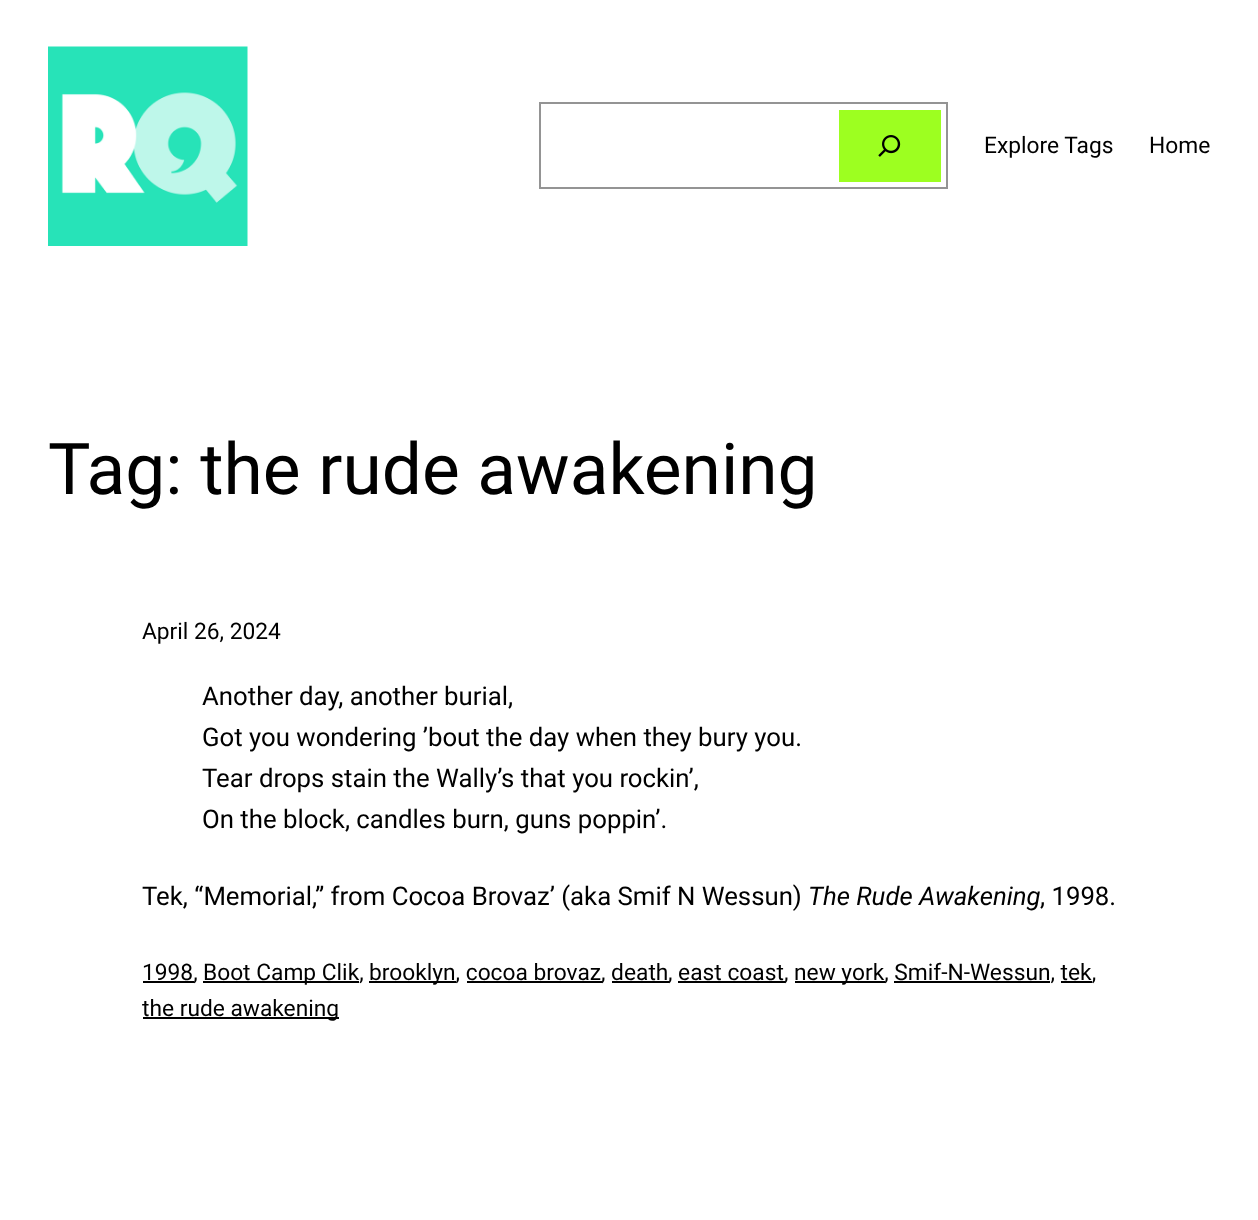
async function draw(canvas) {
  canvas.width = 1258;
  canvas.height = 1220;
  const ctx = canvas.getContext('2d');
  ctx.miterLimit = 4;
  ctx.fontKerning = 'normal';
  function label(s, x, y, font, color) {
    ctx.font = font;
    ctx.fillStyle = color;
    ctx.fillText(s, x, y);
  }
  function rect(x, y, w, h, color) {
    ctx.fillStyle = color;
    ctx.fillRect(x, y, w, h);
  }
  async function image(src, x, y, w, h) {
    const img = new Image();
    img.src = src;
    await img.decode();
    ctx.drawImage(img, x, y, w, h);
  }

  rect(0, 0, 1258, 1220, '#fff');
  await image('assets/img1.png', 48, 46, 200, 200);
  ctx.strokeStyle = '#949494';
  ctx.lineWidth = 2;
  ctx.strokeRect(540, 103, 407, 85);
  rect(839, 110, 102, 72, '#9dff20');
  await image('assets/img2.png', 878, 135, 23, 22);
  label('Explore Tags', 984, 153, '22.75px Roboto', '#000');
  label('Home', 1149, 153, '22.75px Roboto', '#000');
  label('Tag: the rude awakening', 48, 494, '71.25px Roboto', '#000');
  label('April 26, 2024', 142, 639, '22.75px Roboto', '#000');
  label('Another day, another burial,', 202, 705, '25.75px Roboto', '#000');
  label('Got you wondering ’bout the day when they bury you.', 202, 746, '25.75px Roboto', '#000');
  label('Tear drops stain the Wally’s that you rockin’,', 202, 787, '25.75px Roboto', '#000');
  label('On the block, candles burn, guns poppin’.', 202, 828, '25.75px Roboto', '#000');
  label('Tek, “Memorial,” from Cocoa Brovaz’ (aka Smif N Wessun)', 142, 905, '25.75px Roboto', '#000');
  label('The Rude Awakening', 808, 905, 'italic 25.75px Roboto', '#000');
  label(', 1998.', 1040, 905, '25.75px Roboto', '#000');
  rect(143, 981, 51, 2, '#000');
  label('1998,', 142, 980, '22.75px Roboto', '#000');
  rect(203, 981, 156, 2, '#000');
  label('Boot Camp Clik,', 203, 980, '22.75px Roboto', '#000');
  rect(369, 981, 87, 2, '#000');
  label('brooklyn, cocoa brovaz', 369, 980, '22.75px Roboto', '#000');
  rect(467, 981, 135, 2, '#000');
  label(', death', 601, 980, '22.75px Roboto', '#000');
  rect(612, 981, 57, 2, '#000');
  label(', east coast', 668, 980, '22.75px Roboto', '#000');
  rect(678, 981, 107, 2, '#000');
  label(',', 784, 980, '22.75px Roboto', '#000');
  rect(795, 981, 90, 2, '#000');
  label('new york, Smif-N-Wessun, tek,', 794, 980, '22.75px Roboto', '#000');
  rect(894, 981, 156, 2, '#000');
  rect(1061, 981, 31, 2, '#000');
  rect(143, 1017, 196, 2, '#000');
  label('the rude awakening', 142, 1016, '22.75px Roboto', '#000');
}

draw(document.querySelector('canvas'));
